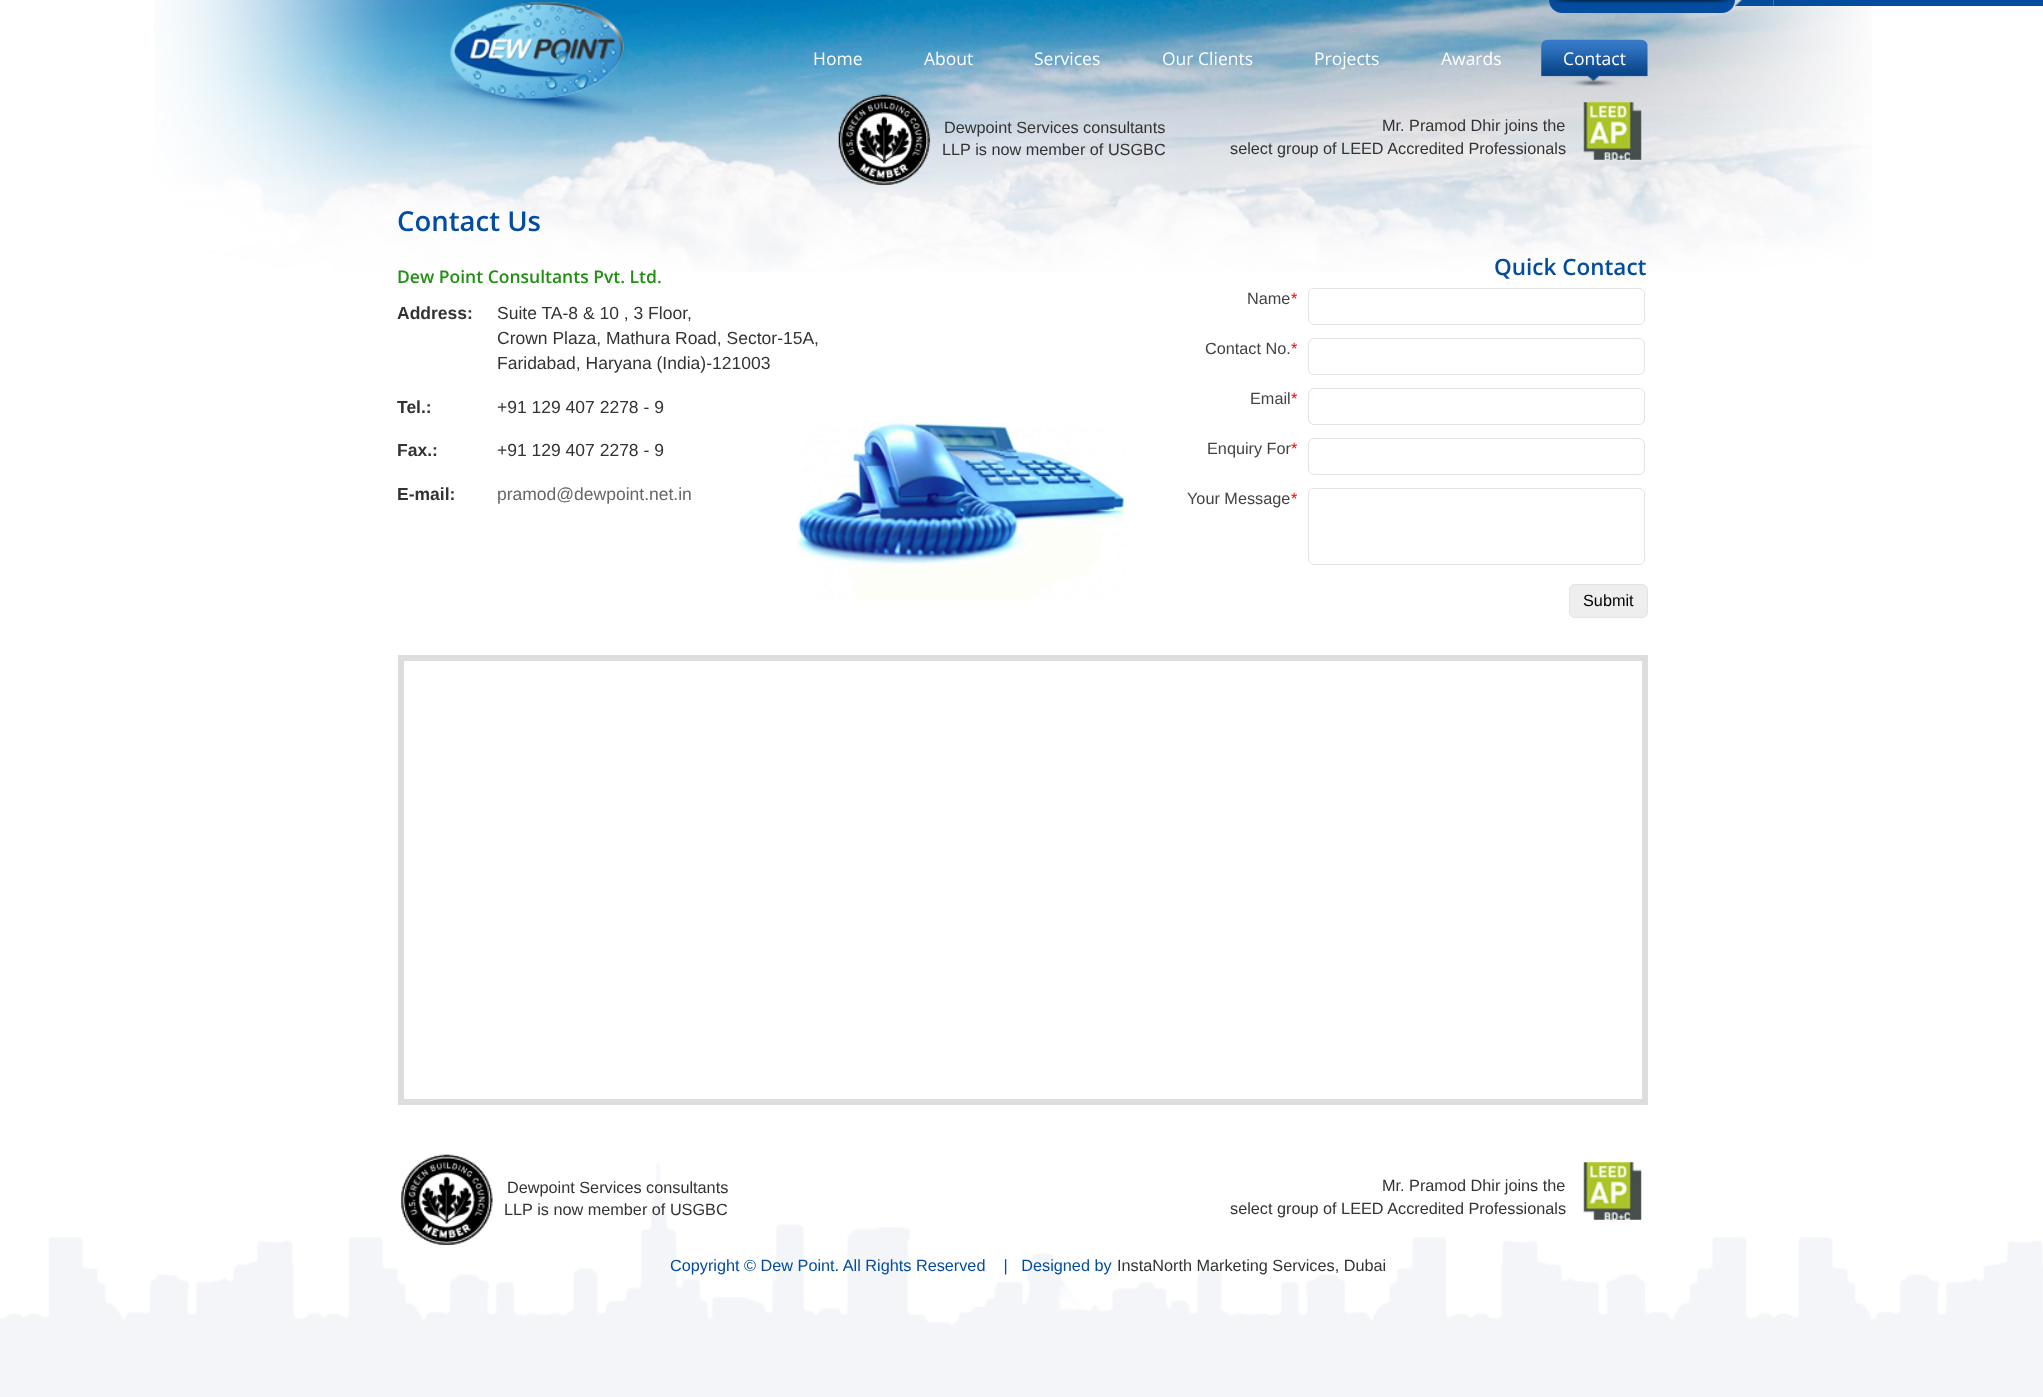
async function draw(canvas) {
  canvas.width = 2043;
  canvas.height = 1397;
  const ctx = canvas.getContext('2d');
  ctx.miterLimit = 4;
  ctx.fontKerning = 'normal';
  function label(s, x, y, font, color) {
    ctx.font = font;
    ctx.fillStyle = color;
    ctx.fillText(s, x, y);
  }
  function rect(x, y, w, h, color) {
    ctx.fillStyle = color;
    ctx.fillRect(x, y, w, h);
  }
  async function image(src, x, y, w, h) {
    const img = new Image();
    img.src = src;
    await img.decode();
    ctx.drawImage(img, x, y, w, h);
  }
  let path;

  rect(0, 0, 2043, 1397, '#fff');
  await image('assets/img1.png', 154, 0, 1718, 272);
  ctx.fillStyle = '#044c9e';
  path = new Path2D('M1549-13H1735V0C1735 7 1729 13 1722 13H1562C1555 13 1549 7 1549 0Z');
  ctx.fill(path);
  await image('assets/img2.png', 1550, 0, 184, 4);
  await image('assets/img3.png', 1735, 0, 39, 6);
  rect(1774, 0, 269, 6, '#044c9e');
  await image('assets/img4.png', 435, 2, 197, 113);
  label('Home', 813, 65, '17.5px Open Sans', '#fff');
  label('About', 924, 65, '17.5px Open Sans', '#fff');
  label('Services', 1034, 65, '17.5px Open Sans', '#fff');
  label('Our Clients', 1162, 65, '17.5px Open Sans', '#fff');
  label('Projects', 1314, 65, '17.5px Open Sans', '#fff');
  label('Awards', 1441, 65, '17.5px Open Sans', '#fff');
  await image('assets/img5.png', 1541, 39, 107, 48);
  label('Contact', 1563, 65, '17.5px Open Sans', '#fff');
  await image('assets/img6.png', 838, 94, 93, 92);
  label('Dewpoint Services consultants', 944, 133, '16.25px Liberation Sans', '#333');
  label('LLP is now member of USGBC', 942, 155, '16.25px Liberation Sans', '#333');
  await image('assets/img7.png', 1583, 102, 59, 58);
  label('Mr. Pramod Dhir joins the', 1382, 131, '16.25px Liberation Sans', '#333');
  label('select group of LEED Accredited Professionals', 1230, 154, '16.25px Liberation Sans', '#333');
  label('Contact Us', 397, 231, '600 27.5px Open Sans', '#034ca0');
  await image('assets/img8.png', 796, 421, 331, 180);
  label('Dew Point Consultants Pvt. Ltd.', 397, 283, '600 17.5px Open Sans', '#238e14');
  label('Address:', 397, 319, 'bold 17.5px Liberation Sans', '#333');
  label('Suite TA-8 & 10 , 3 Floor,', 497, 319, '17.5px Liberation Sans', '#333');
  label('Crown Plaza, Mathura Road, Sector-15A,', 497, 344, '17.5px Liberation Sans', '#333');
  label('Faridabad, Haryana (India)-121003', 497, 369, '17.5px Liberation Sans', '#333');
  label('Tel.:', 397, 413, 'bold 17.5px Liberation Sans', '#333');
  label('+91 129 407 2278 - 9', 497, 413, '17.5px Liberation Sans', '#333');
  label('Fax.:', 397, 456, 'bold 17.5px Liberation Sans', '#333');
  label('+91 129 407 2278 - 9', 497, 456, '17.5px Liberation Sans', '#333');
  label('E-mail:', 397, 500, 'bold 17.5px Liberation Sans', '#333');
  label('pramod@dewpoint.net.in', 497, 500, '17.5px Liberation Sans', '#666');
  label('Quick Contact', 1494, 275, '600 22.5px Open Sans', '#034ca0');
  label('Name', 1247, 304, '16.25px Liberation Sans', '#434343');
  label('*', 1291, 304, '16.25px Liberation Sans', '#f00');
  ctx.beginPath();
  ctx.roundRect(1308.5, 288.5, 336, 36, 5.5);
  ctx.strokeStyle = '#e3e3e3';
  ctx.stroke();
  label('Contact No.', 1205, 354, '16.25px Liberation Sans', '#434343');
  label('*', 1291, 354, '16.25px Liberation Sans', '#f00');
  ctx.beginPath();
  ctx.roundRect(1308.5, 338.5, 336, 36, 5.5);
  ctx.stroke();
  label('Email', 1250, 404, '16.25px Liberation Sans', '#434343');
  label('*', 1291, 404, '16.25px Liberation Sans', '#f00');
  ctx.beginPath();
  ctx.roundRect(1308.5, 388.5, 336, 36, 5.5);
  ctx.stroke();
  label('Enquiry For', 1207, 454, '16.25px Liberation Sans', '#434343');
  label('*', 1291, 454, '16.25px Liberation Sans', '#f00');
  ctx.beginPath();
  ctx.roundRect(1308.5, 438.5, 336, 36, 5.5);
  ctx.stroke();
  label('Your Message', 1187, 504, '16.25px Liberation Sans', '#434343');
  label('*', 1291, 504, '16.25px Liberation Sans', '#f00');
  ctx.beginPath();
  ctx.roundRect(1308.5, 488.5, 336, 76, 5.5);
  ctx.stroke();
  ctx.fillStyle = '#eee';
  ctx.beginPath();
  ctx.roundRect(1569.5, 584.5, 78, 33, 5.5);
  ctx.fill();
  ctx.stroke();
  label('Submit', 1583, 606, '16.25px Liberation Sans', '#000');
  ctx.strokeStyle = '#ddd';
  ctx.lineWidth = 6;
  ctx.strokeRect(401, 658, 1244, 444);
  await image('assets/img9.png', 0, 1163, 2043, 234);
  await image('assets/img10.png', 400, 1154, 93, 92);
  label('Dewpoint Services consultants', 507, 1193, '16.25px Liberation Sans', '#333');
  label('LLP is now member of USGBC', 504, 1215, '16.25px Liberation Sans', '#333');
  await image('assets/img11.png', 1583, 1162, 59, 58);
  label('Mr. Pramod Dhir joins the', 1382, 1191, '16.25px Liberation Sans', '#333');
  label('select group of LEED Accredited Professionals', 1230, 1214, '16.25px Liberation Sans', '#333');
  label('Copyright © Dew Point. All Rights Reserved    |   Designed by', 670, 1271, '16.25px Liberation Sans', '#034ca0');
  label('InstaNorth Marketing Services, Dubai', 1117, 1271, '16.25px Liberation Sans', '#333');
}

draw(document.querySelector('canvas'));
